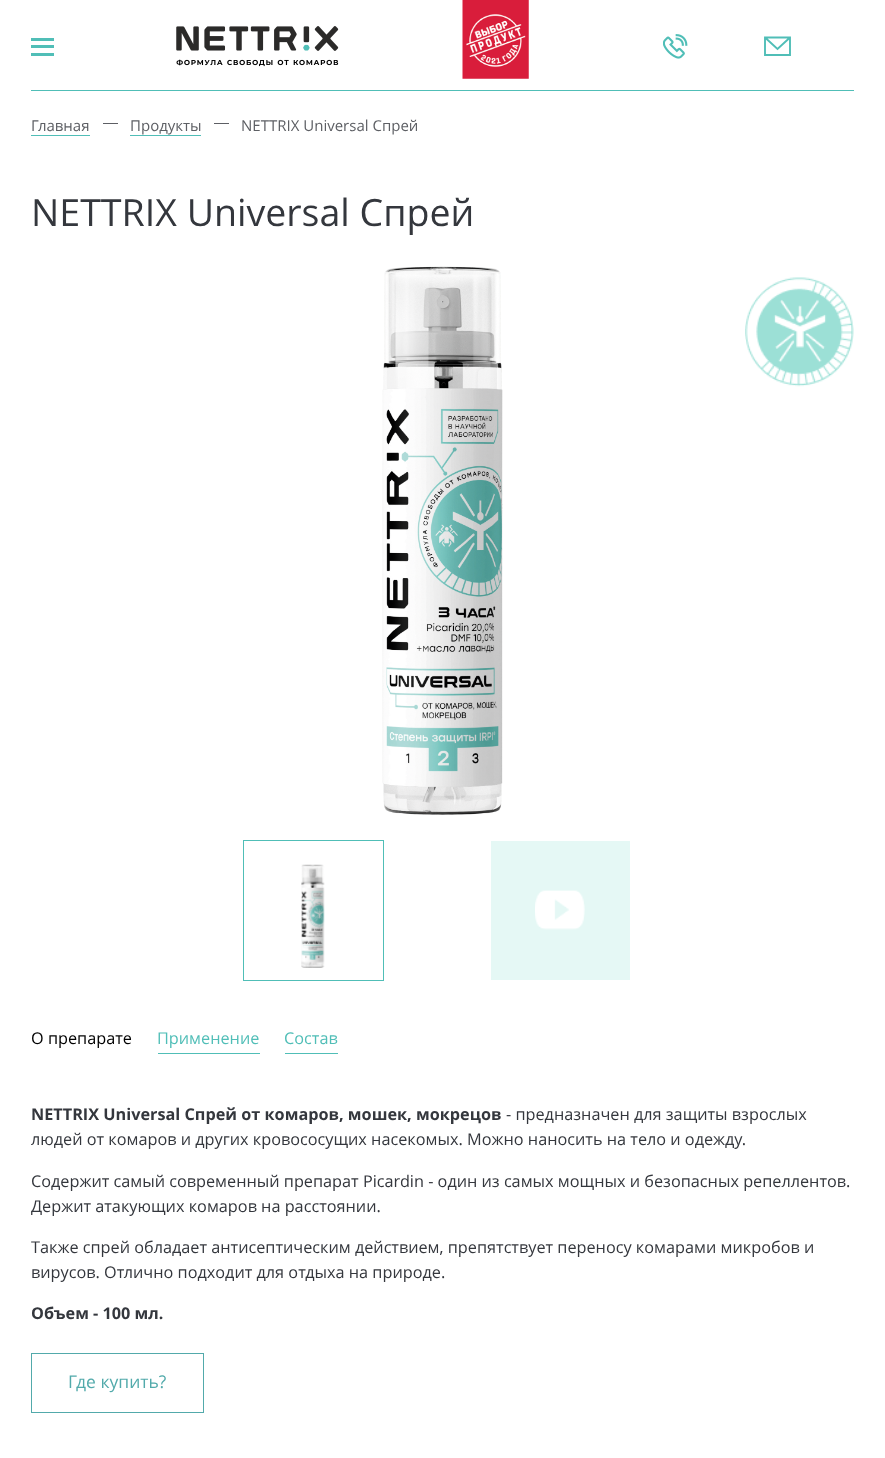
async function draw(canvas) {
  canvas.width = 885;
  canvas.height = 1458;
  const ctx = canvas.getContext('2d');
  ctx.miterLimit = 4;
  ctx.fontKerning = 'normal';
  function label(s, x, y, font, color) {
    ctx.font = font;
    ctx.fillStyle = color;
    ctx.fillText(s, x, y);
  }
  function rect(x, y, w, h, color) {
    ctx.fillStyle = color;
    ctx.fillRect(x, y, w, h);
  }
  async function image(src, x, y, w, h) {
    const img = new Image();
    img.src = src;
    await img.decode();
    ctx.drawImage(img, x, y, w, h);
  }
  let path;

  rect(0, 0, 885, 1458, '#fff');
  rect(31, 90, 823, 1, '#50beb7');
  rect(31, 38, 23, 3, '#50beb7');
  rect(31, 45, 23, 3, '#50beb7');
  rect(31, 53, 23, 3, '#50beb7');
  await image('assets/img1.png', 176, 26, 163, 41);
  await image('assets/img2.png', 462, 0, 67, 79);
  await image('assets/img3.png', 663, 34, 25, 25);
  path = new Path2D('M765 37.5H790V55H765ZM765 37.5L777.5 49L790 37.5');
  ctx.strokeStyle = '#50beb7';
  ctx.lineWidth = 1.9;
  ctx.stroke(path);
  label('Главная', 31, 131, '15px Open Sans', '#5d5f64');
  rect(31, 135, 59, 1, '#50beb7');
  rect(103, 123, 15, 1, '#5d5f64');
  label('Продукты', 130, 131, '15px Open Sans', '#5d5f64');
  rect(130, 135, 71, 1, '#50beb7');
  rect(214, 123, 15, 1, '#5d5f64');
  label('NETTRIX Universal Спрей', 241, 131, '15px Open Sans', '#5d5f64');
  label('NETTRIX Universal Спрей', 31, 226, '37.5px Open Sans', '#34373d');
  await image('assets/img4.png', 382, 266, 121, 549);
  await image('assets/img5.png', 745, 277, 109, 110);
  ctx.lineWidth = 1;
  ctx.strokeRect(243.5, 840.5, 140, 140);
  await image('assets/img6.png', 301, 864, 24, 104);
  rect(491, 841, 139, 139, '#e5f8f5');
  await image('assets/img7.png', 535, 890, 50, 40);
  label('О препарате', 31, 1044, '16.25px Open Sans', '#000');
  rect(158, 1053, 102, 1, '#50beb7');
  label('Применение', 157, 1044, '16.25px Open Sans', '#50beb7');
  rect(285, 1053, 53, 1, '#50beb7');
  label('Состав', 284, 1044, '16.25px Open Sans', '#50beb7');
  label('NETTRIX Universal Спрей от комаров, мошек, мокрецов', 31, 1120, 'bold 16.25px Open Sans', '#34373d');
  label('- предназначен для защиты взрослых', 506, 1120, '16.25px Open Sans', '#34373d');
  label('людей от комаров и других кровососущих насекомых. Можно наносить на тело и одежду.', 31, 1145, '16.25px Open Sans', '#34373d');
  label('Содержит самый современный препарат Picardin - один из самых мощных и безопасных репеллентов.', 31, 1187, '16.25px Open Sans', '#34373d');
  label('Держит атакующих комаров на расстоянии.', 31, 1212, '16.25px Open Sans', '#34373d');
  label('Также спрей обладает антисептическим действием, препятствует переносу комарами микробов и', 31, 1253, '16.25px Open Sans', '#34373d');
  label('вирусов. Отлично подходит для отдыха на природе.', 31, 1278, '16.25px Open Sans', '#34373d');
  label('Объем - 100 мл.', 31, 1319, 'bold 16.25px Open Sans', '#34373d');
  ctx.strokeStyle = '#52aaab';
  ctx.strokeRect(31.5, 1353.5, 172, 59);
  label('Где купить?', 68, 1388, '17.5px Open Sans', '#52aaab');
}

draw(document.querySelector('canvas'));
